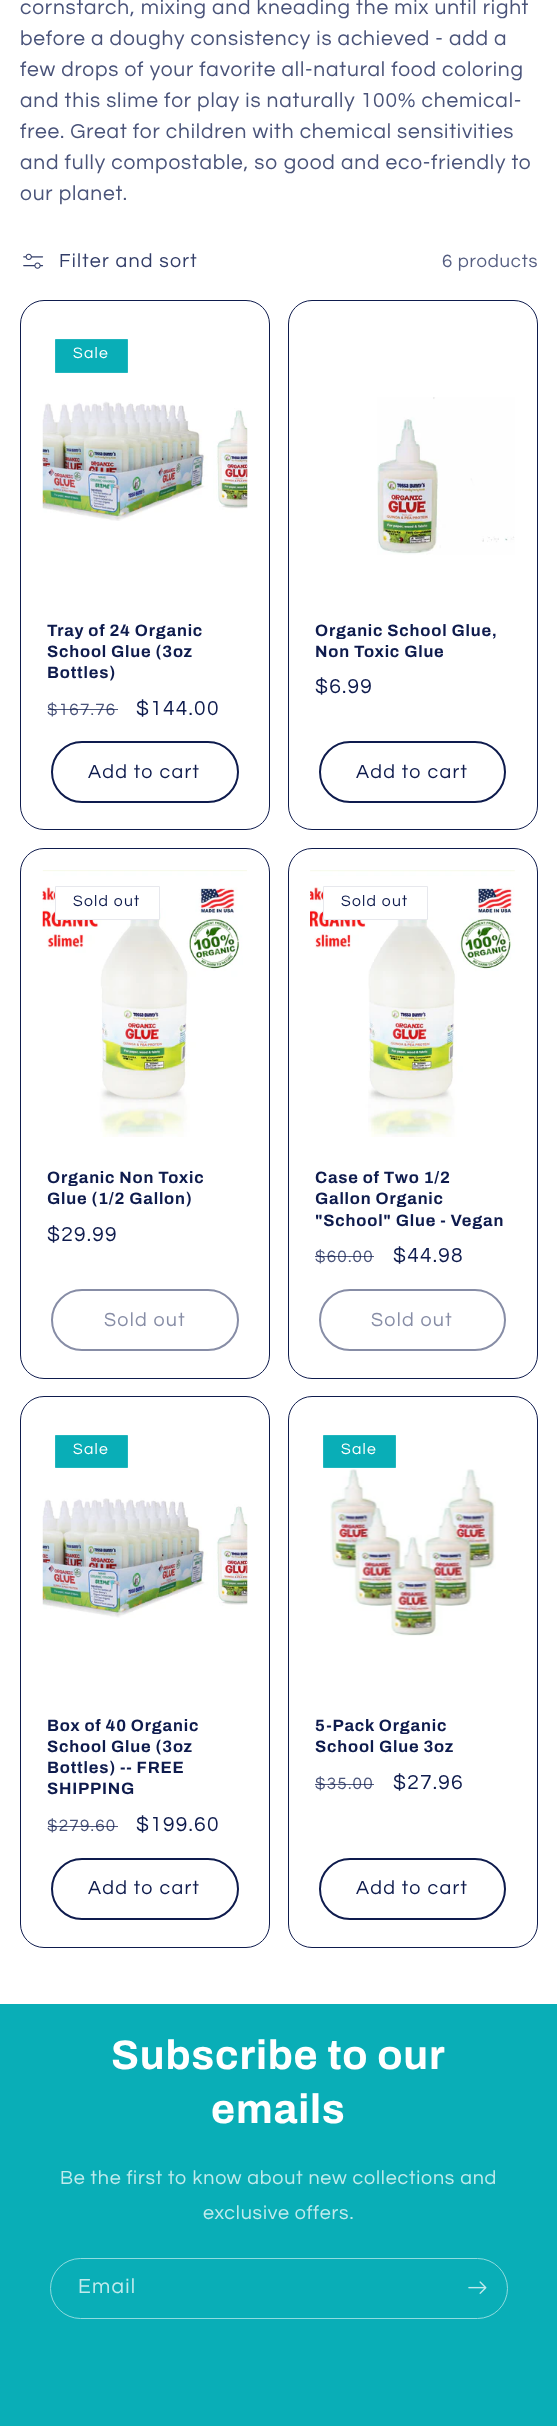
async function draw(canvas) {
  canvas.width = 557;
  canvas.height = 2426;
  const ctx = canvas.getContext('2d');
  ctx.miterLimit = 4;
  ctx.fontKerning = 'normal';
  function label(s, x, y, font, color) {
    ctx.font = font;
    ctx.fillStyle = color;
    ctx.fillText(s, x, y);
  }
  function rect(x, y, w, h, color) {
    ctx.fillStyle = color;
    ctx.fillRect(x, y, w, h);
  }
  async function image(src, x, y, w, h) {
    const img = new Image();
    img.src = src;
    await img.decode();
    ctx.drawImage(img, x, y, w, h);
  }

  rect(0, 0, 557, 2426, '#fff');
  ctx.letterSpacing = '0.8px';
  label('cornstarch, mixing and kneading the mix until right', 20, 14, '21px Questrial', '#4a547a');
  label('before a doughy consistency is achieved - add a', 20, 45, '21px Questrial', '#4a547a');
  label('few drops of your favorite all-natural food coloring', 20, 76, '21px Questrial', '#4a547a');
  label('and this slime for play is naturally 100% chemical-', 20, 107, '21px Questrial', '#4a547a');
  label('free. Great for children with chemical sensitivities', 20, 138, '21px Questrial', '#4a547a');
  label('and fully compostable, so good and eco-friendly to', 20, 169, '21px Questrial', '#4a547a');
  label('our planet.', 20, 200, '21px Questrial', '#4a547a');
  await image('assets/img1.png', 23, 253, 21, 16);
  ctx.letterSpacing = '1.25px';
  label('Filter and sort', 59, 267, '19.7px Questrial', '#323d68');
  ctx.letterSpacing = '0.8px';
  label('6 products', 442, 267, '18.5px Questrial', '#565f82');
  ctx.beginPath();
  ctx.roundRect(20.5, 300.5, 249, 529, 23.5);
  ctx.strokeStyle = '#0e1b4d';
  ctx.stroke();
  ctx.fillStyle = '#09aeb7';
  ctx.beginPath();
  ctx.rect(55.5, 339.5, 72, 33);
  ctx.fill();
  ctx.strokeStyle = '#22b6be';
  ctx.stroke();
  ctx.letterSpacing = '1.25px';
  label('Sale', 73, 358, '15.75px Questrial', '#fff');
  await image('assets/img2.png', 42, 401, 206, 120);
  ctx.letterSpacing = '0.8px';
  label('Tray of 24 Organic', 47, 636, 'bold 16.5px Archivo', '#0e1b4d');
  label('School Glue (3oz', 47, 657, 'bold 16.5px Archivo', '#0e1b4d');
  label('Bottles)', 47, 678, 'bold 16.5px Archivo', '#0e1b4d');
  ctx.letterSpacing = '1.25px';
  label('$167.76', 47, 715, '17px Questrial', '#4a547a');
  rect(48, 709, 70, 1, '#0e1b4dbf');
  label('$144.00', 136, 715, '21px Questrial', '#0e1b4d');
  ctx.beginPath();
  ctx.roundRect(52, 742, 186, 60, 30);
  ctx.strokeStyle = '#0e1b4d';
  ctx.lineWidth = 2;
  ctx.stroke();
  label('Add to cart', 88, 778, '19.7px Questrial', '#0e1b4d');
  ctx.beginPath();
  ctx.roundRect(288.5, 300.5, 249, 529, 23.5);
  ctx.lineWidth = 1;
  ctx.stroke();
  await image('assets/img3.png', 377, 397, 138, 158);
  ctx.letterSpacing = '0.8px';
  label('Organic School Glue,', 315, 636, 'bold 16.5px Archivo', '#0e1b4d');
  label('Non Toxic Glue', 315, 657, 'bold 16.5px Archivo', '#0e1b4d');
  ctx.letterSpacing = '1.25px';
  label('$6.99', 315, 693, '21px Questrial', '#0e1b4d');
  ctx.beginPath();
  ctx.roundRect(320, 742, 185, 60, 30);
  ctx.lineWidth = 2;
  ctx.stroke();
  label('Add to cart', 356, 778, '19.7px Questrial', '#0e1b4d');
  ctx.beginPath();
  ctx.roundRect(20.5, 848.5, 249, 530, 23.5);
  ctx.lineWidth = 1;
  ctx.stroke();
  await image('assets/img4.png', 42, 870, 205, 267);
  ctx.fillStyle = '#fff';
  ctx.beginPath();
  ctx.rect(55.5, 886.5, 104, 33);
  ctx.fill();
  ctx.strokeStyle = '#e7e8ed';
  ctx.stroke();
  label('Sold out', 73, 906, '15.75px Questrial', '#0e1b4d');
  ctx.letterSpacing = '0.8px';
  label('Organic Non Toxic', 47, 1183, 'bold 16.5px Archivo', '#0e1b4d');
  label('Glue (1/2 Gallon)', 47, 1204, 'bold 16.5px Archivo', '#0e1b4d');
  ctx.letterSpacing = '1.25px';
  label('$29.99', 47, 1241, '21px Questrial', '#0e1b4d');
  ctx.beginPath();
  ctx.roundRect(52, 1290, 186, 60, 30);
  ctx.strokeStyle = '#878da6';
  ctx.lineWidth = 2;
  ctx.stroke();
  label('Sold out', 104, 1326, '19.7px Questrial', '#878da6');
  ctx.beginPath();
  ctx.roundRect(288.5, 848.5, 249, 530, 23.5);
  ctx.strokeStyle = '#0e1b4d';
  ctx.lineWidth = 1;
  ctx.stroke();
  await image('assets/img5.png', 310, 870, 205, 267);
  ctx.fillStyle = '#fff';
  ctx.beginPath();
  ctx.rect(323.5, 886.5, 104, 33);
  ctx.fill();
  ctx.strokeStyle = '#e7e8ed';
  ctx.stroke();
  label('Sold out', 341, 906, '15.75px Questrial', '#0e1b4d');
  ctx.letterSpacing = '0.8px';
  label('Case of Two 1/2', 315, 1183, 'bold 16.5px Archivo', '#0e1b4d');
  label('Gallon Organic', 315, 1204, 'bold 16.5px Archivo', '#0e1b4d');
  label('"School" Glue - Vegan', 315, 1226, 'bold 16.5px Archivo', '#0e1b4d');
  ctx.letterSpacing = '1.25px';
  label('$60.00', 315, 1262, '17px Questrial', '#4a547a');
  rect(315, 1256, 59, 1, '#0e1b4dbf');
  label('$44.98', 393, 1262, '21px Questrial', '#0e1b4d');
  ctx.beginPath();
  ctx.roundRect(320, 1290, 185, 60, 30);
  ctx.strokeStyle = '#878da6';
  ctx.lineWidth = 2;
  ctx.stroke();
  label('Sold out', 371, 1326, '19.7px Questrial', '#878da6');
  ctx.beginPath();
  ctx.roundRect(20.5, 1396.5, 249, 551, 23.5);
  ctx.strokeStyle = '#0e1b4d';
  ctx.lineWidth = 1;
  ctx.stroke();
  ctx.fillStyle = '#09aeb7';
  ctx.beginPath();
  ctx.rect(55.5, 1435.5, 72, 32);
  ctx.fill();
  ctx.strokeStyle = '#22b6be';
  ctx.stroke();
  label('Sale', 73, 1454, '15.75px Questrial', '#fff');
  await image('assets/img6.png', 42, 1498, 206, 120);
  ctx.letterSpacing = '0.8px';
  label('Box of 40 Organic', 47, 1731, 'bold 16.5px Archivo', '#0e1b4d');
  label('School Glue (3oz', 47, 1752, 'bold 16.5px Archivo', '#0e1b4d');
  label('Bottles) -- FREE', 47, 1773, 'bold 16.5px Archivo', '#0e1b4d');
  label('SHIPPING', 47, 1794, 'bold 16.5px Archivo', '#0e1b4d');
  ctx.letterSpacing = '1.25px';
  label('$279.60', 47, 1831, '17px Questrial', '#4a547a');
  rect(48, 1826, 70, 1, '#0e1b4dbf');
  label('$199.60', 136, 1831, '21px Questrial', '#0e1b4d');
  ctx.beginPath();
  ctx.roundRect(52, 1859, 186, 60, 30);
  ctx.strokeStyle = '#0e1b4d';
  ctx.lineWidth = 2;
  ctx.stroke();
  label('Add to cart', 88, 1894, '19.7px Questrial', '#0e1b4d');
  ctx.beginPath();
  ctx.roundRect(288.5, 1396.5, 249, 551, 23.5);
  ctx.lineWidth = 1;
  ctx.stroke();
  ctx.fillStyle = '#09aeb7';
  ctx.beginPath();
  ctx.rect(323.5, 1435.5, 72, 32);
  ctx.fill();
  ctx.strokeStyle = '#22b6be';
  ctx.stroke();
  label('Sale', 341, 1454, '15.75px Questrial', '#fff');
  await image('assets/img7.png', 330, 1469, 166, 167);
  ctx.letterSpacing = '0.8px';
  label('5-Pack Organic', 315, 1731, 'bold 16.5px Archivo', '#0e1b4d');
  label('School Glue 3oz', 315, 1752, 'bold 16.5px Archivo', '#0e1b4d');
  ctx.letterSpacing = '1.25px';
  label('$35.00', 315, 1789, '17px Questrial', '#4a547a');
  rect(315, 1784, 59, 1, '#0e1b4dbf');
  label('$27.96', 393, 1789, '21px Questrial', '#0e1b4d');
  ctx.beginPath();
  ctx.roundRect(320, 1859, 185, 60, 30);
  ctx.strokeStyle = '#0e1b4d';
  ctx.lineWidth = 2;
  ctx.stroke();
  label('Add to cart', 356, 1894, '19.7px Questrial', '#0e1b4d');
  rect(0, 2004, 557, 422, '#09aeb7');
  ctx.letterSpacing = '0.8px';
  label('Subscribe to our', 111, 2069, 'bold 41.25px Archivo', '#fff');
  label('emails', 211, 2123, 'bold 41.25px Archivo', '#fff');
  label('Be the first to know about new collections and', 60, 2184, '19.7px Questrial', '#c2ebed');
  label('exclusive offers.', 203, 2219, '19.7px Questrial', '#c2ebed');
  ctx.beginPath();
  ctx.roundRect(50.5, 2258.5, 457, 60, 30);
  ctx.strokeStyle = '#90dbdf';
  ctx.lineWidth = 1;
  ctx.stroke();
  ctx.letterSpacing = '1.25px';
  label('Email', 78, 2293, '21px Questrial', '#c2ebed');
  await image('assets/img8.png', 468, 2281, 19, 13);
}

draw(document.querySelector('canvas'));
